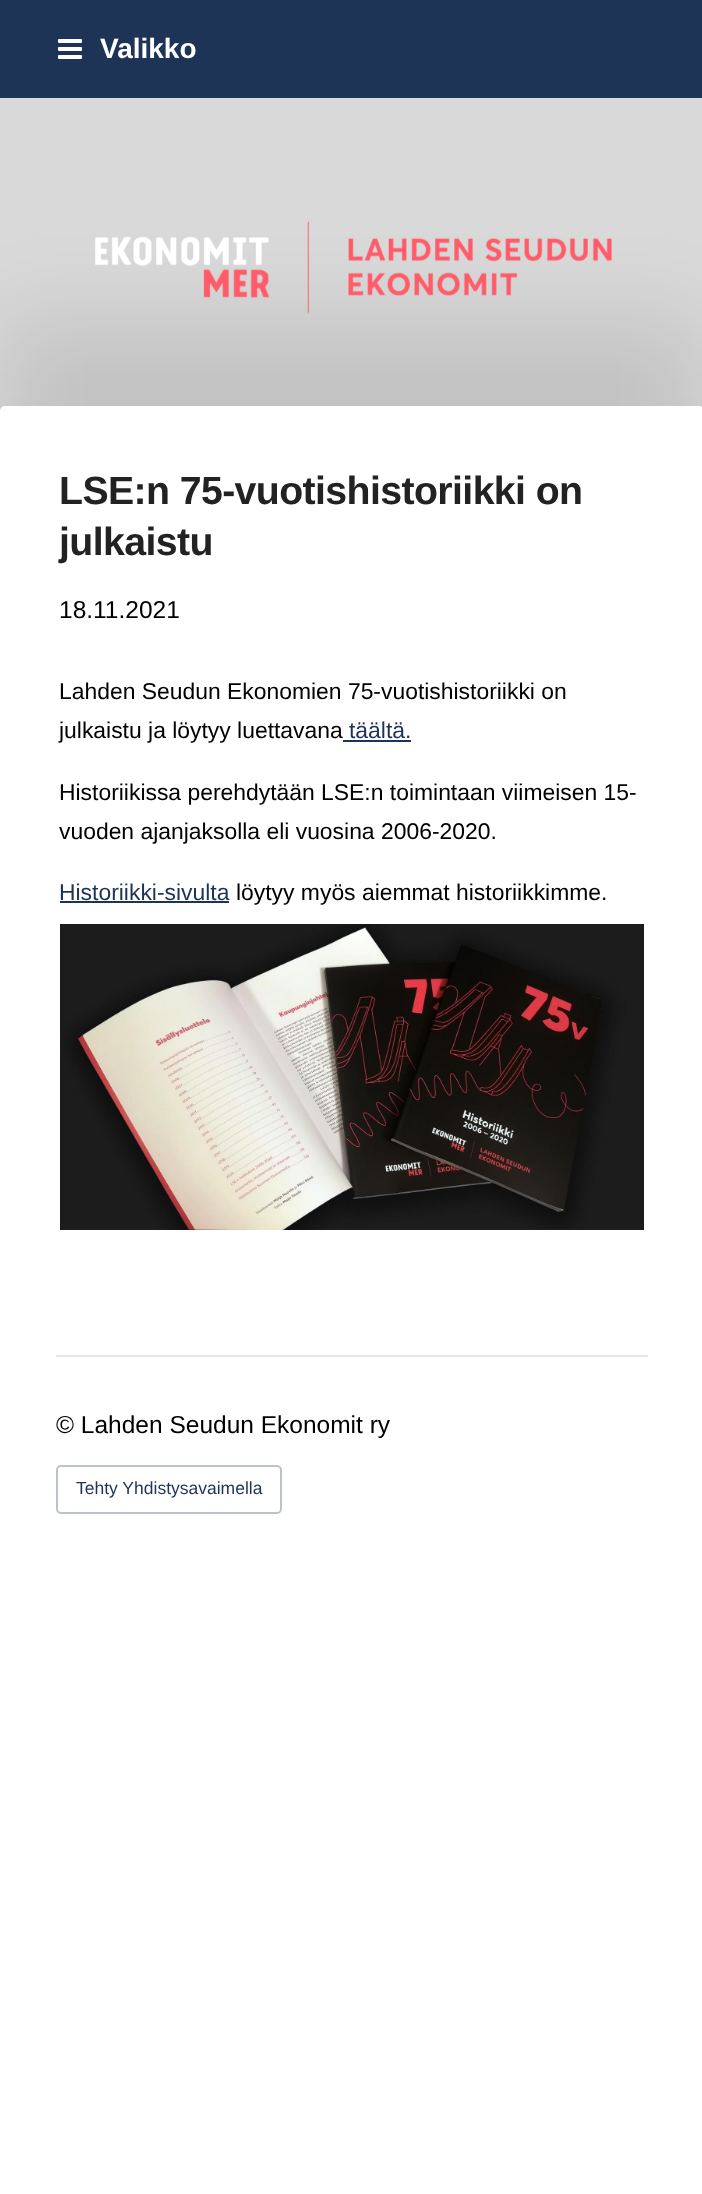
async function draw(canvas) {
  canvas.width = 702;
  canvas.height = 2194;
  const ctx = canvas.getContext('2d');
  ctx.miterLimit = 4;
  ctx.fontKerning = 'normal';
  function label(s, x, y, font, color) {
    ctx.font = font;
    ctx.fillStyle = color;
    ctx.fillText(s, x, y);
  }
  function rect(x, y, w, h, color) {
    ctx.fillStyle = color;
    ctx.fillRect(x, y, w, h);
  }
  function roundedRect(x, y, w, h, r, color) {
    ctx.fillStyle = color;
    ctx.beginPath();
    ctx.roundRect(x, y, w, h, r);
    ctx.fill();
  }
  async function image(src, x, y, w, h) {
    const img = new Image();
    img.src = src;
    await img.decode();
    ctx.drawImage(img, x, y, w, h);
  }

  rect(0, 0, 702, 2194, '#fff');
  rect(0, 0, 702, 98, '#1e3456');
  await image('assets/img1.png', 58, 39, 24, 20);
  label('Valikko', 100, 58, 'bold 28px Liberation Sans', '#fff');
  rect(0, 98, 702, 313, '#d9d9d9');
  ctx.fillStyle = '#0000001a';
  ctx.filter = 'blur(44px)';
  ctx.beginPath();
  ctx.roundRect(0, 319, 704, 883, 5);
  ctx.fill();
  ctx.filter = 'none';
  await image('assets/img2.png', 95, 221, 517, 93);
  roundedRect(0, 406, 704, 884, 5, '#fff');
  ctx.letterSpacing = '-0.6px';
  label('LSE:n 75-vuotishistoriikki on', 59, 504, 'bold 39.25px Liberation Sans', '#222');
  label('julkaistu', 59, 555, 'bold 39.25px Liberation Sans', '#222');
  ctx.letterSpacing = '0px';
  label('18.11.2021', 59, 618, '24.5px Liberation Sans', '#000');
  label('Lahden Seudun Ekonomien 75-vuotishistoriikki on', 59, 699, '22.9px Liberation Sans', '#000');
  label('julkaistu ja löytyy luettavana', 59, 738, '22.9px Liberation Sans', '#000');
  label('täältä.', 349, 738, '22.9px Liberation Sans', '#1e3456');
  rect(343, 740, 68, 2, '#1e3456');
  label('Historiikissa perehdytään LSE:n toimintaan viimeisen 15-', 59, 800, '22.9px Liberation Sans', '#000');
  label('vuoden ajanjaksolla eli vuosina 2006-2020.', 59, 839, '22.9px Liberation Sans', '#000');
  label('Historiikki-sivulta', 59, 900, '22.9px Liberation Sans', '#1e3456');
  rect(60, 901, 169, 2, '#1e3456');
  label('löytyy myös aiemmat historiikkimme.', 236, 900, '22.9px Liberation Sans', '#000');
  await image('assets/img3.png', 60, 924, 584, 306);
  rect(56, 1355, 592, 2, '#e6e6e6');
  label('© Lahden Seudun Ekonomit ry', 56, 1433, '24.5px Liberation Sans', '#000');
  ctx.beginPath();
  ctx.roundRect(57, 1466, 224, 47, 4);
  ctx.strokeStyle = '#bcc2cc';
  ctx.lineWidth = 2;
  ctx.stroke();
  label('Tehty Yhdistysavaimella', 76, 1494, '17.5px Liberation Sans', '#1e3456');
}

draw(document.querySelector('canvas'));
